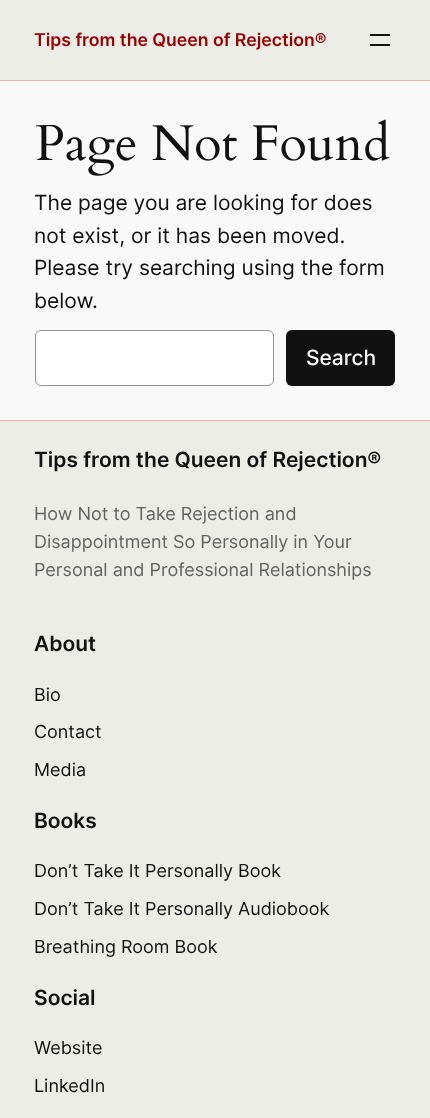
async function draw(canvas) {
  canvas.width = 430;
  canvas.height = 1118;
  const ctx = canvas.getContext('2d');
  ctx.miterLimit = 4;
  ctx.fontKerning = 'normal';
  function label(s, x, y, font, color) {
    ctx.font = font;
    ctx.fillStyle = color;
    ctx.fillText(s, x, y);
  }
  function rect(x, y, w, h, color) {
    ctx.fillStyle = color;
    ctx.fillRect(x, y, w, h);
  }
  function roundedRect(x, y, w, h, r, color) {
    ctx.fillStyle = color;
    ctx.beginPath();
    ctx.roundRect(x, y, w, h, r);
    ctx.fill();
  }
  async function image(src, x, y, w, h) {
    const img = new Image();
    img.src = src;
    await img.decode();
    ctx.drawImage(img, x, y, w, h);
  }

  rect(0, 0, 430, 1118, '#f9f9f9');
  rect(0, 0, 430, 80, '#edede8');
  rect(0, 80, 430, 1, '#e5b5a3');
  label('Tips from the Queen of Rejection®', 34, 46, '600 17.7px Inter', '#900');
  rect(370, 34, 20, 2, '#111');
  rect(370, 44, 20, 2, '#111');
  await image('assets/img1.png', 36, 119, 354, 57);
  label('The page you are looking for does', 34, 210, '21px Inter', '#111');
  label('not exist, or it has been moved.', 34, 243, '21px Inter', '#111');
  label('Please try searching using the form', 34, 275, '21px Inter', '#111');
  label('below.', 34, 308, '21px Inter', '#111');
  ctx.fillStyle = '#fff';
  ctx.beginPath();
  ctx.roundRect(35.5, 330.5, 238, 55, 5.5);
  ctx.fill();
  ctx.strokeStyle = '#949494';
  ctx.stroke();
  roundedRect(286, 330, 109, 56, 6, '#111');
  label('Search', 306, 365, '500 21px Inter', '#f9f9f9');
  rect(0, 421, 430, 697, '#edede8');
  rect(0, 420, 430, 1, '#e5b5a3');
  label('Tips from the Queen of Rejection®', 34, 467, '600 21px Inter', '#111');
  label('How Not to Take Rejection and', 34, 520, '18px Inter', '#636363');
  label('Disappointment So Personally in Your', 34, 548, '18px Inter', '#636363');
  label('Personal and Professional Relationships', 34, 576, '18px Inter', '#636363');
  label('About', 34, 651, '600 21px Inter', '#111');
  label('Bio', 34, 701, '18px Inter', '#111');
  label('Contact', 34, 738, '18px Inter', '#111');
  label('Media', 34, 776, '18px Inter', '#111');
  label('Books', 34, 828, '600 21px Inter', '#111');
  label('Don’t Take It Personally Book', 34, 877, '18px Inter', '#111');
  label('Don’t Take It Personally Audiobook', 34, 915, '18px Inter', '#111');
  label('Breathing Room Book', 34, 953, '18px Inter', '#111');
  label('Social', 34, 1005, '600 21px Inter', '#111');
  label('Website', 34, 1054, '18px Inter', '#111');
  label('LinkedIn', 34, 1092, '18px Inter', '#111');
}

draw(document.querySelector('canvas'));
